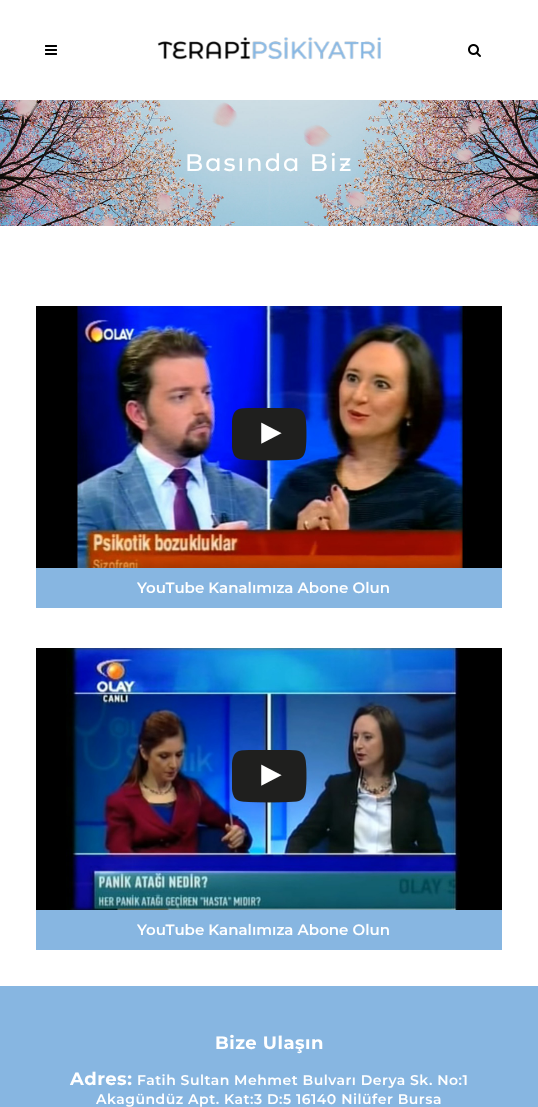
async function draw(canvas) {
  canvas.width = 538;
  canvas.height = 1107;
  const ctx = canvas.getContext('2d');
  ctx.miterLimit = 4;
  ctx.fontKerning = 'normal';
  function label(s, x, y, font, color) {
    ctx.font = font;
    ctx.fillStyle = color;
    ctx.fillText(s, x, y);
  }
  function rect(x, y, w, h, color) {
    ctx.fillStyle = color;
    ctx.fillRect(x, y, w, h);
  }
  async function image(src, x, y, w, h) {
    const img = new Image();
    img.src = src;
    await img.decode();
    ctx.drawImage(img, x, y, w, h);
  }

  rect(0, 0, 538, 1107, '#fff');
  await image('assets/img1.png', 45, 45, 12, 10);
  await image('assets/img2.png', 157, 37, 224, 23);
  await image('assets/img3.png', 468, 44, 13, 13);
  await image('assets/img4.png', 0, 100, 538, 126);
  ctx.letterSpacing = '2px';
  label('Basında Biz', 185, 171, '500 24px Montserrat Alternates', '#fff');
  rect(36, 306, 466, 262, '#000');
  await image('assets/img5.png', 76, 306, 391, 262);
  await image('assets/img6.png', 232, 408, 75, 53);
  rect(36, 568, 466, 40, '#87b6e1');
  ctx.letterSpacing = '0px';
  label('YouTube Kanalımıza Abone Olun', 137, 593, '600 15px Montserrat', '#fff');
  rect(36, 648, 466, 262, '#000');
  await image('assets/img7.png', 66, 648, 394, 262);
  await image('assets/img8.png', 232, 750, 75, 53);
  rect(36, 910, 466, 40, '#87b6e1');
  label('YouTube Kanalımıza Abone Olun', 137, 935, '600 15px Montserrat', '#fff');
  rect(0, 986, 538, 121, '#87b6e1');
  ctx.letterSpacing = '0.5px';
  label('Bize Ulaşın', 215, 1049, 'bold 18px Montserrat', '#fff');
  label('Adres:', 70, 1085, 'bold 18px Montserrat', '#fff');
  label('Fatih Sultan Mehmet Bulvarı Derya Sk. No:1', 137, 1085, '600 14px Montserrat', '#fff');
  label('Akagündüz Apt. Kat:3 D:5 16140 Nilüfer Bursa', 96, 1104, '600 14px Montserrat', '#fff');
}

draw(document.querySelector('canvas'));
